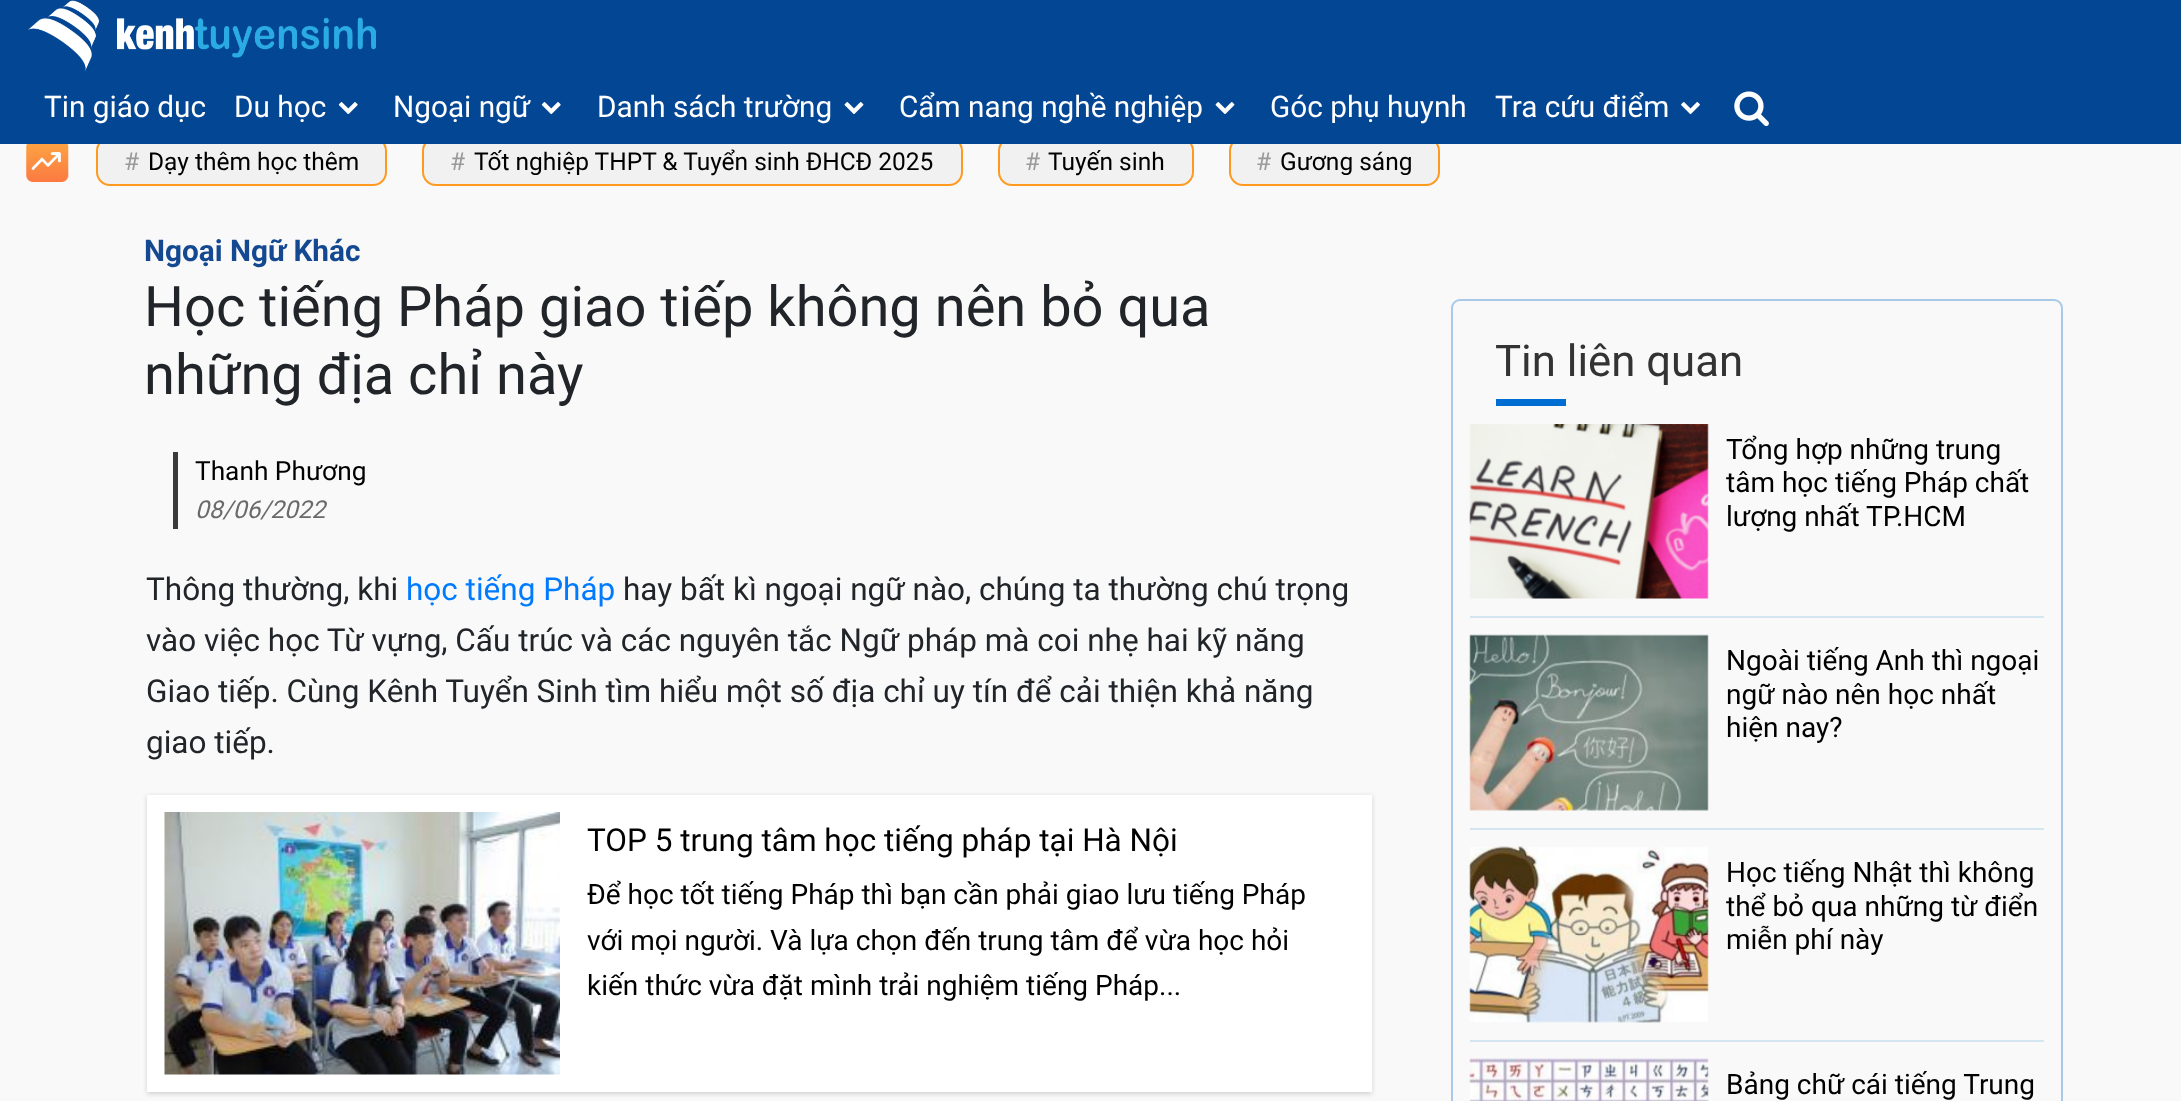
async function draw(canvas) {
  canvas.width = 2181;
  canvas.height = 1101;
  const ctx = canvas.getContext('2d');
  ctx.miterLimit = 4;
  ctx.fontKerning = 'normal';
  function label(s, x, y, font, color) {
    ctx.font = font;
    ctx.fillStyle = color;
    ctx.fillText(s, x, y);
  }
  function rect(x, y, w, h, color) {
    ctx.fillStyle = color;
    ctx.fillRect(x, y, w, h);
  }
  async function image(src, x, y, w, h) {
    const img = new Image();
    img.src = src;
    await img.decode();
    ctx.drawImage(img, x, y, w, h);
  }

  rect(0, 0, 2181, 1101, '#f9f9f9');
  ctx.fillStyle = '#f1f1f1';
  ctx.beginPath();
  ctx.roundRect(97, 138, 289, 47, 13);
  ctx.fill();
  ctx.strokeStyle = '#ff9a1e';
  ctx.lineWidth = 2;
  ctx.stroke();
  ctx.beginPath();
  ctx.roundRect(423, 138, 539, 47, 13);
  ctx.fill();
  ctx.stroke();
  ctx.beginPath();
  ctx.roundRect(999, 138, 194, 47, 13);
  ctx.fill();
  ctx.stroke();
  ctx.beginPath();
  ctx.roundRect(1230, 138, 209, 47, 13);
  ctx.fill();
  ctx.stroke();
  rect(0, 0, 2181, 144, '#034694');
  await image('assets/img1.png', 28, 0, 348, 71);
  label('Tin giáo dục', 44, 117, '29.75px Roboto', '#fff');
  label('Du học', 234, 117, '29.75px Roboto', '#fff');
  await image('assets/img2.png', 338, 102, 20, 13);
  label('Ngoại ngữ', 393, 117, '29.75px Roboto', '#fff');
  await image('assets/img2.png', 541, 102, 20, 13);
  label('Danh sách trường', 597, 117, '29.75px Roboto', '#fff');
  await image('assets/img3.png', 844, 102, 20, 12);
  label('Cẩm nang nghề nghiệp', 899, 117, '29.75px Roboto', '#fff');
  await image('assets/img3.png', 1215, 102, 20, 12);
  label('Góc phụ huynh', 1270, 117, '29.75px Roboto', '#fff');
  label('Tra cứu điểm', 1495, 117, '29.75px Roboto', '#fff');
  await image('assets/img4.png', 1681, 102, 19, 13);
  await image('assets/img5.png', 1734, 91, 35, 36);
  await image('assets/img6.png', 26, 144, 43, 38);
  label('#', 124, 170, '24.5px Roboto', '#9a9a9a');
  label('Dạy thêm học thêm', 148, 170, '24.5px Roboto', '#000');
  label('#', 450, 170, '24.5px Roboto', '#9a9a9a');
  label('Tốt nghiệp THPT & Tuyển sinh ĐHCĐ 2025', 474, 170, '24.5px Roboto', '#000');
  label('#', 1025, 170, '24.5px Roboto', '#9a9a9a');
  label('Tuyến sinh', 1048, 170, '24.5px Roboto', '#000');
  label('#', 1256, 170, '24.5px Roboto', '#9a9a9a');
  label('Gương sáng', 1280, 170, '24.5px Roboto', '#000');
  label('Ngoại Ngữ Khác', 144, 261, 'bold 29.75px Roboto', '#144991');
  label('Học tiếng Pháp giao tiếp không nên bỏ qua', 144, 326, '56px Roboto', '#212529');
  label('những địa chỉ này', 144, 394, '56px Roboto', '#212529');
  rect(173, 452, 5, 77, '#3b3b3b');
  label('Thanh Phương', 195, 480, '26.25px Roboto', '#000');
  label('08/06/2022', 195, 518, 'italic 24.5px Roboto', '#6a6a6a');
  label('Thông thường, khi', 146, 600, '31.5px Roboto', '#212529');
  label('học tiếng Pháp', 406, 600, '31.5px Roboto', '#007bff');
  label('hay bất kì ngoại ngữ nào, chúng ta thường chú trọng', 623, 600, '31.5px Roboto', '#212529');
  label('vào việc học Từ vựng, Cấu trúc và các nguyên tắc Ngữ pháp mà coi nhẹ hai kỹ năng', 146, 651, '31.5px Roboto', '#212529');
  label('Giao tiếp. Cùng Kênh Tuyển Sinh tìm hiểu một số địa chỉ uy tín để cải thiện khả năng', 146, 702, '31.5px Roboto', '#212529');
  label('giao tiếp.', 146, 753, '31.5px Roboto', '#212529');
  ctx.fillStyle = '#00000029';
  ctx.filter = 'blur(2.5px)';
  ctx.beginPath();
  ctx.rect(147, 796, 1225, 298);
  ctx.fill();
  ctx.filter = 'none';
  rect(147, 795, 1225, 297, '#fff');
  await image('assets/img7.png', 164, 812, 396, 263);
  label('TOP 5 trung tâm học tiếng pháp tại Hà Nội', 587, 851, '31.5px Roboto', '#000');
  label('Để học tốt tiếng Pháp thì bạn cần phải giao lưu tiếng Pháp', 587, 904, '28px Roboto', '#000');
  label('với mọi người. Và lựa chọn đến trung tâm để vừa học hỏi', 587, 950, '28px Roboto', '#000');
  label('kiến thức vừa đặt mình trải nghiệm tiếng Pháp...', 587, 995, '28px Roboto', '#000');
  ctx.beginPath();
  ctx.roundRect(1452, 300, 610, 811, 8);
  ctx.strokeStyle = '#a8cae8';
  ctx.stroke();
  label('Tin liên quan', 1495, 376, '43.75px Roboto', '#333');
  rect(1496, 399, 70, 7, '#006dd3');
  await image('assets/img8.png', 1469, 424, 240, 175);
  label('Tổng hợp những trung', 1726, 459, '28px Roboto', '#000');
  label('tâm học tiếng Pháp chất', 1726, 492, '28px Roboto', '#000');
  label('lượng nhất TP.HCM', 1726, 526, '28px Roboto', '#000');
  rect(1470, 616, 574, 2, '#d5e6f3');
  await image('assets/img9.png', 1469, 634, 240, 177);
  label('Ngoài tiếng Anh thì ngoại', 1726, 670, '28px Roboto', '#000');
  label('ngữ nào nên học nhất', 1726, 704, '28px Roboto', '#000');
  label('hiện nay?', 1726, 737, '28px Roboto', '#000');
  rect(1470, 828, 574, 2, '#d5e6f3');
  await image('assets/img10.png', 1469, 846, 240, 177);
  label('Học tiếng Nhật thì không', 1726, 882, '28px Roboto', '#000');
  label('thể bỏ qua những từ điển', 1726, 916, '28px Roboto', '#000');
  label('miễn phí này', 1726, 949, '28px Roboto', '#000');
  rect(1470, 1040, 574, 2, '#d5e6f3');
  await image('assets/img11.png', 1469, 1058, 240, 43);
  label('Bảng chữ cái tiếng Trung', 1726, 1094, '28px Roboto', '#000');
}

draw(document.querySelector('canvas'));
